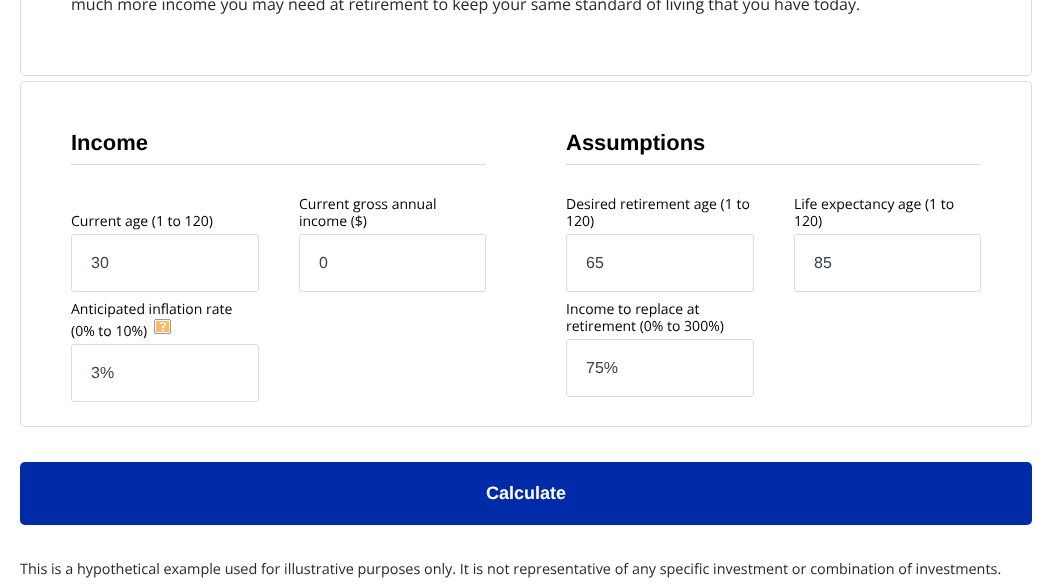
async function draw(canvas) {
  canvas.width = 1052;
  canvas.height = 584;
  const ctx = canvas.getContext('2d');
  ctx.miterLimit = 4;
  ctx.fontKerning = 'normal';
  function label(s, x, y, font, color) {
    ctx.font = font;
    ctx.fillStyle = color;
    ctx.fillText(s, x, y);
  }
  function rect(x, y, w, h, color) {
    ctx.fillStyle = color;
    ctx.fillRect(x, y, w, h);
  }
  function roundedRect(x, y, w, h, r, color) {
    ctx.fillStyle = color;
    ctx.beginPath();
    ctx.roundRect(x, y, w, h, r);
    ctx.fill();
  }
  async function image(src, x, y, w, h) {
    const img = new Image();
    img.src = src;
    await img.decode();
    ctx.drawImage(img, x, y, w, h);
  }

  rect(0, 0, 1052, 584, '#fff');
  ctx.beginPath();
  ctx.roundRect(20.5, -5.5, 1011, 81, 4.5);
  ctx.strokeStyle = '#dbdcdc';
  ctx.stroke();
  label('much more income you may need at retirement to keep your same standard of living that you have today.', 71, 10, '16px Open Sans', '#292929');
  ctx.beginPath();
  ctx.roundRect(20.5, 81.5, 1011, 345, 4.5);
  ctx.stroke();
  rect(71, 164, 415, 1, '#d5dcdc');
  label('Income', 71, 150, 'bold 22px Liberation Sans', '#000');
  label('Current age (1 to 120)', 71, 226, '14px Open Sans', '#000');
  ctx.beginPath();
  ctx.roundRect(71.5, 234.5, 187, 57, 2.5);
  ctx.stroke();
  label('30', 91, 268, '16px Liberation Sans', '#3b444c');
  label('Current gross annual', 299, 209, '14px Open Sans', '#000');
  label('income ($)', 299, 226, '14px Open Sans', '#000');
  ctx.beginPath();
  ctx.roundRect(299.5, 234.5, 186, 57, 2.5);
  ctx.stroke();
  label('0', 319, 268, '16px Liberation Sans', '#3b444c');
  label('Anticipated inflation rate', 71, 314, '14px Open Sans', '#000');
  label('(0% to 10%)', 71, 336, '14px Open Sans', '#000');
  await image('assets/img1.png', 154, 319, 17, 15);
  ctx.beginPath();
  ctx.roundRect(71.5, 344.5, 187, 57, 2.5);
  ctx.stroke();
  label('3%', 91, 378, '16px Liberation Sans', '#3b444c');
  rect(566, 164, 415, 1, '#d5dcdc');
  label('Assumptions', 566, 150, 'bold 22px Liberation Sans', '#000');
  label('Desired retirement age (1 to', 566, 209, '14px Open Sans', '#000');
  label('120)', 566, 226, '14px Open Sans', '#000');
  ctx.beginPath();
  ctx.roundRect(566.5, 234.5, 187, 57, 2.5);
  ctx.stroke();
  label('65', 586, 268, '16px Liberation Sans', '#3b444c');
  label('Life expectancy age (1 to', 794, 209, '14px Open Sans', '#000');
  label('120)', 794, 226, '14px Open Sans', '#000');
  ctx.beginPath();
  ctx.roundRect(794.5, 234.5, 186, 57, 2.5);
  ctx.stroke();
  label('85', 814, 268, '16px Liberation Sans', '#3b444c');
  label('Income to replace at', 566, 314, '14px Open Sans', '#000');
  label('retirement (0% to 300%)', 566, 331, '14px Open Sans', '#000');
  ctx.beginPath();
  ctx.roundRect(566.5, 339.5, 187, 57, 2.5);
  ctx.stroke();
  label('75%', 586, 373, '16px Liberation Sans', '#3b444c');
  roundedRect(20, 462, 1012, 63, 5, '#002ba8');
  label('Calculate', 486, 499, 'bold 18px Liberation Sans', '#fff');
  label('This is a hypothetical example used for illustrative purposes only. It is not representative of any specific investment or combination of investments.', 20, 574, '14.4px Open Sans', '#292929');
}

draw(document.querySelector('canvas'));
